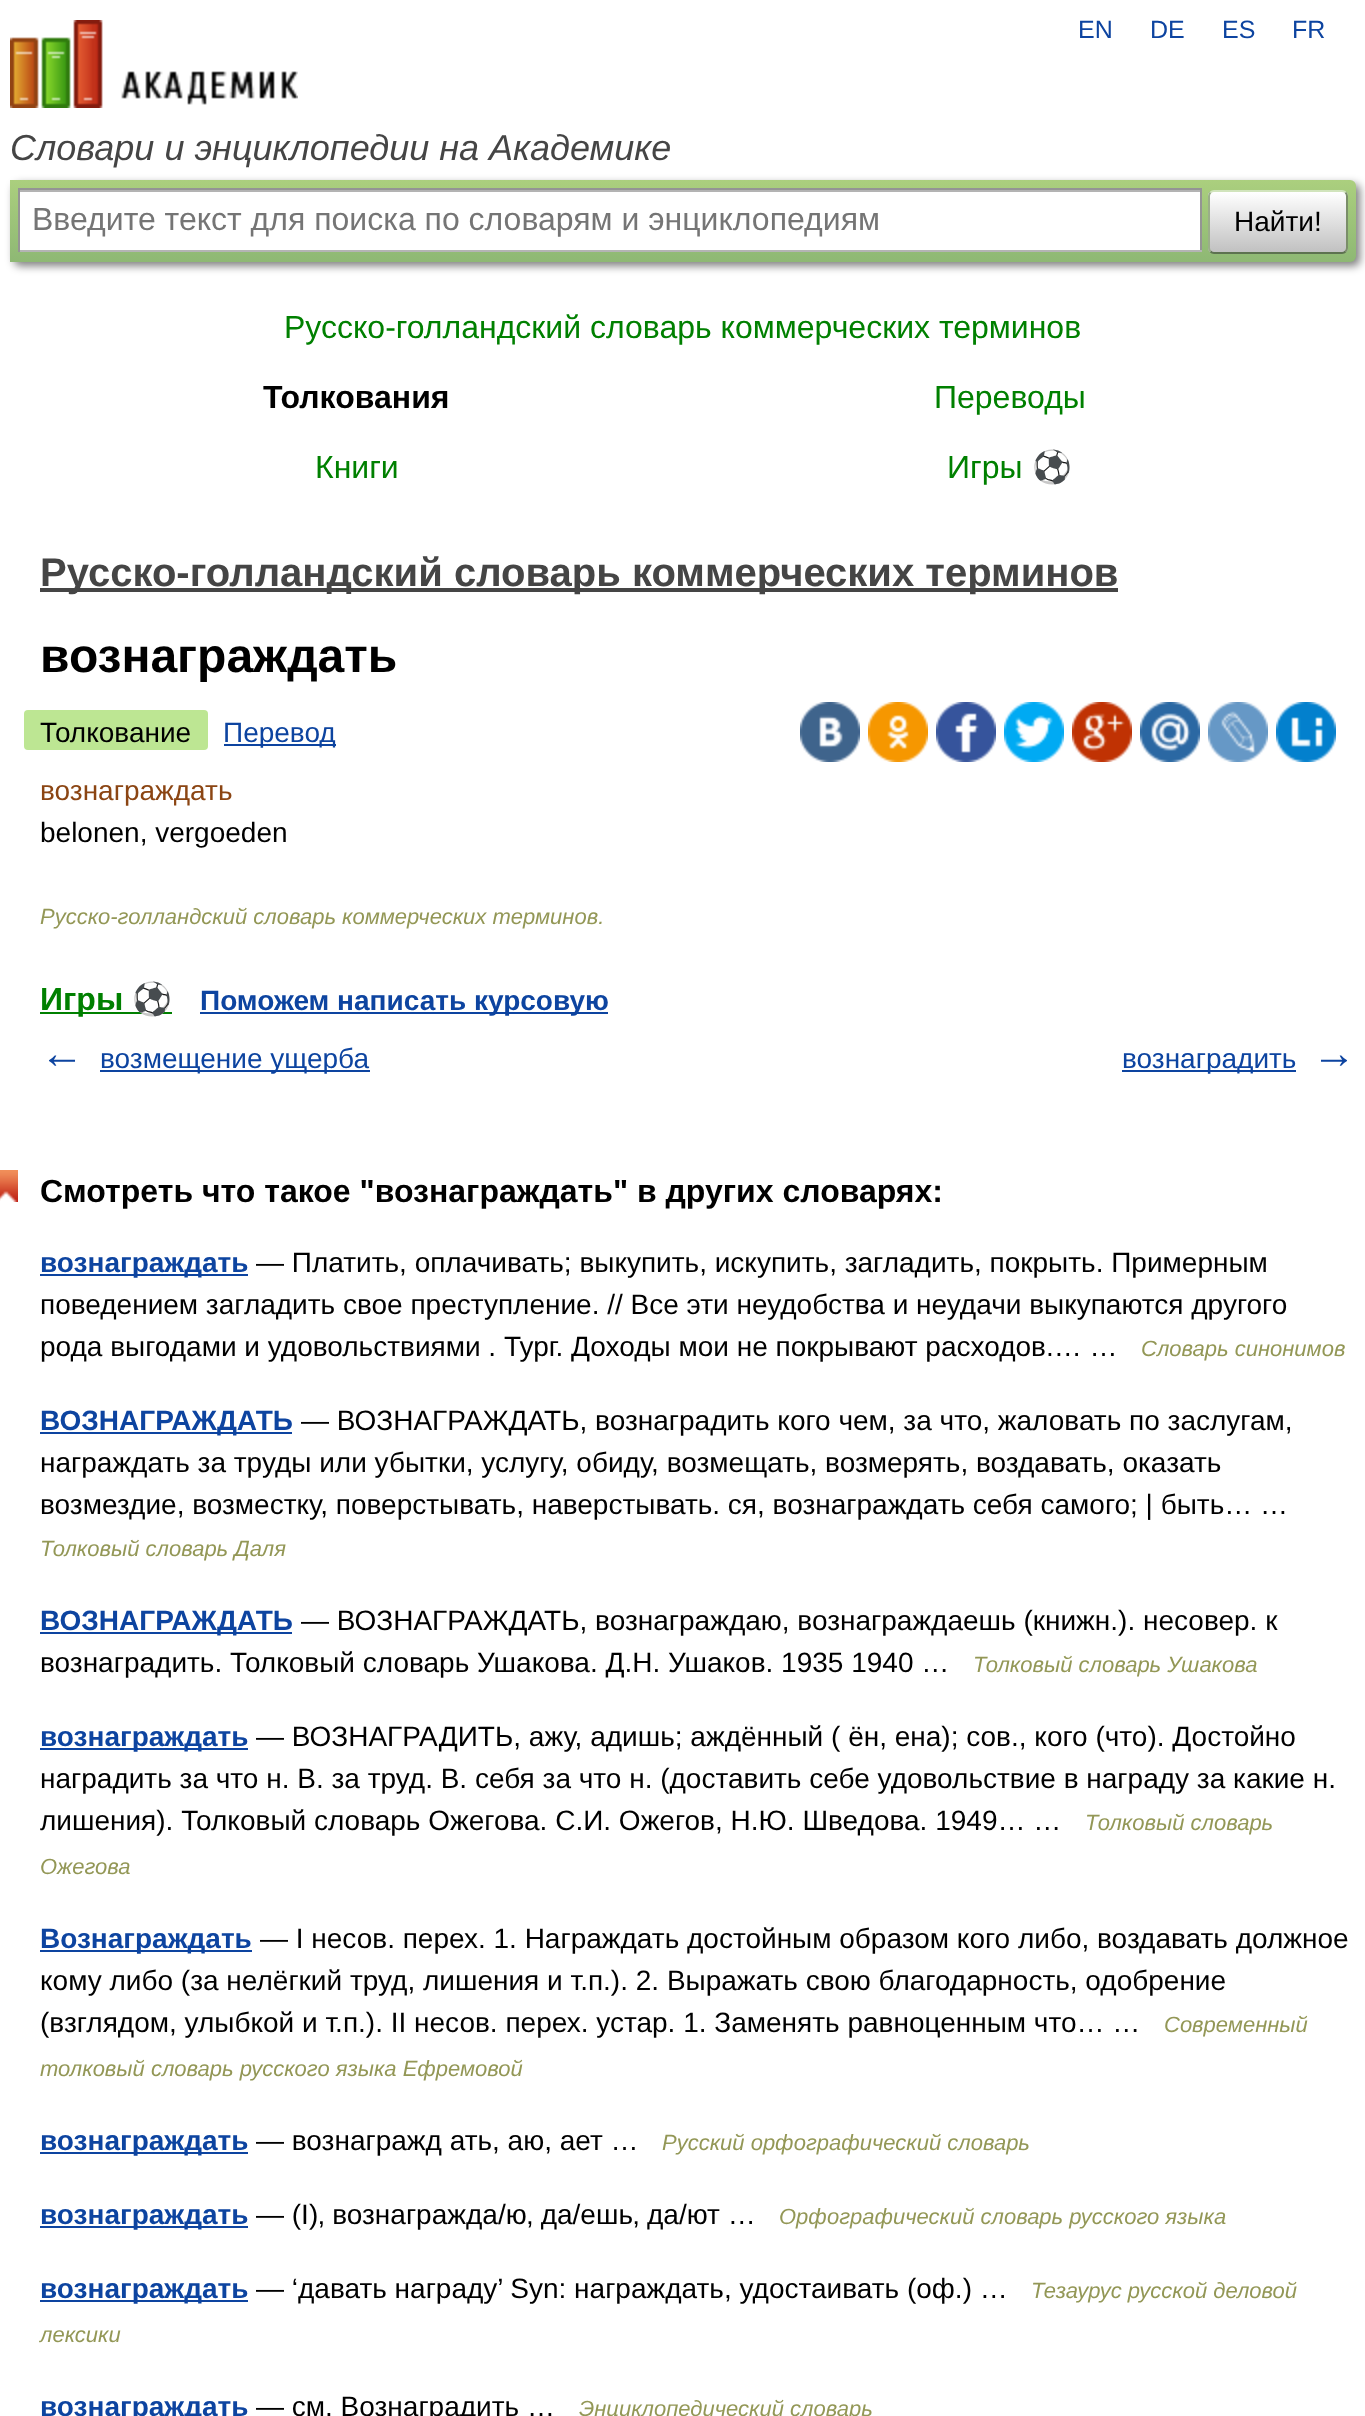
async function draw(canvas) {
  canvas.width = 1365;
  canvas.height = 2416;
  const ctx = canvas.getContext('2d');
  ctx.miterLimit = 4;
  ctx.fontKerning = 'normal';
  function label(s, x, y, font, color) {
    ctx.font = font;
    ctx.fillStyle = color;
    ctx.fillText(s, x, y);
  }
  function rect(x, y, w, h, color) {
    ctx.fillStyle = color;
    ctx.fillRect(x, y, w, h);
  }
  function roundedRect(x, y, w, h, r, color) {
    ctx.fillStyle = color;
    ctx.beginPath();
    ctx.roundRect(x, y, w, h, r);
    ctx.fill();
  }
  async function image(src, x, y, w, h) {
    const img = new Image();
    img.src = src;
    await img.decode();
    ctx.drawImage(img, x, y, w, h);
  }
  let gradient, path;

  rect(0, 0, 1365, 2416, '#fff');
  await image('assets/img1.png', 10, 20, 288, 88);
  label('EN', 1078, 38, '25px Liberation Sans', '#0d44a0');
  label('DE', 1150, 38, '25px Liberation Sans', '#0d44a0');
  label('ES', 1222, 38, '25px Liberation Sans', '#0d44a0');
  label('FR', 1292, 38, '25px Liberation Sans', '#0d44a0');
  label('Словари и энциклопедии на Академике', 10, 160, 'italic 36px Liberation Sans', '#454545');
  ctx.fillStyle = '#00000080';
  ctx.filter = 'blur(4px)';
  ctx.beginPath();
  ctx.roundRect(14, 184, 1346, 82, 6);
  ctx.fill();
  ctx.filter = 'none';
  gradient = ctx.createLinearGradient(683, 180, 683, 262);
  gradient.addColorStop(0, '#abcf7e');
  gradient.addColorStop(1, '#8eb874');
  ctx.fillStyle = gradient;
  ctx.beginPath();
  ctx.roundRect(10, 180, 1346, 82, [0, 6, 6, 0]);
  ctx.fill();
  rect(20, 192, 1180, 58, '#fff');
  rect(20, 190, 1180, 2, '#b3b3b3');
  rect(18, 188, 1184, 2, '#949494');
  rect(1200, 188, 2, 64, '#949494');
  rect(18, 250, 1184, 2, '#b4b4b4');
  rect(18, 188, 2, 64, '#949494');
  label('Введите текст для поиска по словарям и энциклопедиям', 32, 230, '32px Liberation Sans', '#757575');
  ctx.save();
  ctx.beginPath();
  ctx.roundRect(1208, 190, 140, 64, 6);
  ctx.clip();
  gradient = ctx.createLinearGradient(1278, 192, 1278, 252);
  gradient.addColorStop(0, '#fff');
  gradient.addColorStop(1, '#c1c1c1');
  ctx.fillStyle = gradient;
  ctx.fillRect(1208, 192, 140, 60);
  ctx.restore();
  path = new Path2D('M1210.5 192.5C1211.5 191.5 1212.5 191 1214 191H1342C1343.5 191 1344.5 191.5 1345.5 192.5');
  ctx.strokeStyle = '#d1e4bc';
  ctx.lineWidth = 2;
  ctx.stroke(path);
  path = new Path2D('M1345.5 192.5C1346.5 193.5 1347 194.5 1347 196V248C1347 249.5 1346.5 250.5 1345.5 251.5');
  ctx.strokeStyle = '#7a8e69';
  ctx.stroke(path);
  path = new Path2D('M1345.5 251.5C1344.5 252.5 1343.5 253 1342 253H1214C1212.5 253 1211.5 252.5 1210.5 251.5');
  ctx.strokeStyle = '#5d7250';
  ctx.stroke(path);
  path = new Path2D('M1210.5 251.5C1209.5 250.5 1209 249.5 1209 248V196C1209 194.5 1209.5 193.5 1210.5 192.5');
  ctx.strokeStyle = '#9aae89';
  ctx.stroke(path);
  label('Найти!', 1234, 231, '28px Liberation Sans', '#000');
  label('Русско-голландский словарь коммерческих терминов', 284, 338, '32px Liberation Sans', '#008000');
  label('Толкования', 263, 408, 'bold 32px Liberation Sans', '#000');
  label('Переводы', 934, 408, '32px Liberation Sans', '#008000');
  label('Книги', 315, 478, '32px Liberation Sans', '#008000');
  label('Игры', 947, 478, '32px Liberation Sans', '#008000');
  label('⚽', 1032, 478, '32px Noto Color Emoji', '#008000');
  rect(40, 588, 1078, 4, '#454545');
  label('Русско-голландский словарь коммерческих терминов', 40, 586, 'bold 40px Liberation Sans', '#454545');
  label('вознаграждать', 40, 672, 'bold 48px Liberation Sans', '#000');
  roundedRect(24, 710, 184, 40, 4, '#bde693');
  label('Толкование', 40, 742, '28px Liberation Sans', '#000');
  rect(224, 744, 112, 2, '#0d44a0');
  label('Перевод', 223, 742, '28px Liberation Sans', '#0d44a0');
  await image('assets/img2.png', 800, 702, 60, 60);
  await image('assets/img3.png', 868, 702, 60, 60);
  await image('assets/img4.png', 936, 702, 60, 60);
  await image('assets/img5.png', 1004, 702, 60, 60);
  await image('assets/img6.png', 1072, 702, 60, 60);
  await image('assets/img7.png', 1140, 702, 60, 60);
  await image('assets/img8.png', 1208, 702, 60, 60);
  await image('assets/img9.png', 1276, 702, 60, 60);
  label('вознаграждать', 40, 800, '28px Liberation Sans', '#8b4513');
  label('belonen, vergoeden', 40, 842, '28px Liberation Sans', '#000');
  label('Русско-голландский словарь коммерческих терминов.', 40, 924, 'italic 22px Liberation Sans', '#939756');
  rect(40, 1012, 132, 2, '#008000');
  label('Игры', 40, 1010, 'bold 32px Liberation Sans', '#008000');
  label('⚽', 132, 1010, 'bold 32px Noto Color Emoji', '#008000');
  rect(200, 1012, 408, 2, '#0d44a0');
  label('Поможем написать курсовую', 200, 1010, 'bold 28px Liberation Sans', '#0d44a0');
  label('←', 40, 1068, 'bold 44px Liberation Sans', '#0d44a0');
  rect(100, 1070, 270, 2, '#0d44a0');
  label('возмещение ущерба', 100, 1068, '28px Liberation Sans', '#0d44a0');
  rect(1122, 1070, 174, 2, '#0d44a0');
  label('вознаградить', 1122, 1068, '28px Liberation Sans', '#0d44a0');
  label('→', 1312, 1068, 'bold 44px Liberation Sans', '#0d44a0');
  await image('assets/img10.png', 0, 1170, 18, 32);
  label('Смотреть что такое "вознаграждать" в других словарях:', 40, 1202, 'bold 32px Liberation Sans', '#000');
  rect(40, 1274, 208, 2, '#0d44a0');
  label('вознаграждать', 40, 1272, 'bold 28px Liberation Sans', '#0d44a0');
  label('— Платить, оплачивать; выкупить, искупить, загладить, покрыть. Примерным', 256, 1272, '28px Liberation Sans', '#000');
  label('поведением загладить свое преступление. // Все эти неудобства и неудачи выкупаются другого', 40, 1314, '28px Liberation Sans', '#000');
  label('рода выгодами и удовольствиями . Тург. Доходы мои не покрывают расходов.… …', 40, 1356, '28px Liberation Sans', '#000');
  label('Словарь синонимов', 1141, 1356, 'italic 22px Liberation Sans', '#939756');
  rect(40, 1432, 252, 2, '#0d44a0');
  label('ВОЗНАГРАЖДАТЬ', 40, 1430, 'bold 28px Liberation Sans', '#0d44a0');
  label('— ВОЗНАГРАЖДАТЬ, вознаградить кого чем, за что, жаловать по заслугам,', 301, 1430, '28px Liberation Sans', '#000');
  label('награждать за труды или убытки, услугу, обиду, возмещать, возмерять, воздавать, оказать', 40, 1472, '28px Liberation Sans', '#000');
  label('возмездие, возместку, поверстывать, наверстывать. ся, вознаграждать себя самого; | быть… …', 40, 1514, '28px Liberation Sans', '#000');
  label('Толковый словарь Даля', 40, 1556, 'italic 22px Liberation Sans', '#939756');
  rect(40, 1632, 252, 2, '#0d44a0');
  label('ВОЗНАГРАЖДАТЬ', 40, 1630, 'bold 28px Liberation Sans', '#0d44a0');
  label('— ВОЗНАГРАЖДАТЬ, вознаграждаю, вознаграждаешь (книжн.). несовер. к', 301, 1630, '28px Liberation Sans', '#000');
  label('вознаградить. Толковый словарь Ушакова. Д.Н. Ушаков. 1935 1940 …', 40, 1672, '28px Liberation Sans', '#000');
  label('Толковый словарь Ушакова', 973, 1672, 'italic 22px Liberation Sans', '#939756');
  rect(40, 1748, 208, 2, '#0d44a0');
  label('вознаграждать', 40, 1746, 'bold 28px Liberation Sans', '#0d44a0');
  label('— ВОЗНАГРАДИТЬ, ажу, адишь; аждённый ( ён, ена); сов., кого (что). Достойно', 256, 1746, '28px Liberation Sans', '#000');
  label('наградить за что н. В. за труд. В. себя за что н. (доставить себе удовольствие в награду за какие н.', 40, 1788, '28px Liberation Sans', '#000');
  label('лишения). Толковый словарь Ожегова. С.И. Ожегов, Н.Ю. Шведова. 1949… …', 40, 1830, '28px Liberation Sans', '#000');
  label('Толковый словарь', 1085, 1830, 'italic 22px Liberation Sans', '#939756');
  label('Ожегова', 40, 1874, 'italic 22px Liberation Sans', '#939756');
  rect(40, 1950, 212, 2, '#0d44a0');
  label('Вознаграждать', 40, 1948, 'bold 28px Liberation Sans', '#0d44a0');
  label('— I несов. перех. 1. Награждать достойным образом кого либо, воздавать должное', 260, 1948, '28px Liberation Sans', '#000');
  label('кому либо (за нелёгкий труд, лишения и т.п.). 2. Выражать свою благодарность, одобрение', 40, 1990, '28px Liberation Sans', '#000');
  label('(взглядом, улыбкой и т.п.). II несов. перех. устар. 1. Заменять равноценным что… …', 40, 2032, '28px Liberation Sans', '#000');
  label('Современный', 1164, 2032, 'italic 22px Liberation Sans', '#939756');
  label('толковый словарь русского языка Ефремовой', 40, 2076, 'italic 22px Liberation Sans', '#939756');
  rect(40, 2152, 208, 2, '#0d44a0');
  label('вознаграждать', 40, 2150, 'bold 28px Liberation Sans', '#0d44a0');
  label('— вознагражд ать, аю, ает …', 256, 2150, '28px Liberation Sans', '#000');
  label('Русский орфографический словарь', 662, 2150, 'italic 22px Liberation Sans', '#939756');
  rect(40, 2226, 208, 2, '#0d44a0');
  label('вознаграждать', 40, 2224, 'bold 28px Liberation Sans', '#0d44a0');
  label('— (I)‚ вознагражда/ю‚ да/ешь‚ да/ют …', 256, 2224, '28px Liberation Sans', '#000');
  label('Орфографический словарь русского языка', 779, 2224, 'italic 22px Liberation Sans', '#939756');
  rect(40, 2300, 208, 2, '#0d44a0');
  label('вознаграждать', 40, 2298, 'bold 28px Liberation Sans', '#0d44a0');
  label('— ‘давать награду’ Syn: награждать, удостаивать (оф.) …', 256, 2298, '28px Liberation Sans', '#000');
  label('Тезаурус русской деловой', 1031, 2298, 'italic 22px Liberation Sans', '#939756');
  label('лексики', 40, 2342, 'italic 22px Liberation Sans', '#939756');
  label('вознаграждать', 40, 2416, 'bold 28px Liberation Sans', '#0d44a0');
  label('— см. Вознаградить …', 256, 2416, '28px Liberation Sans', '#000');
  label('Энциклопедический словарь', 579, 2416, 'italic 22px Liberation Sans', '#939756');
}

draw(document.querySelector('canvas'));
